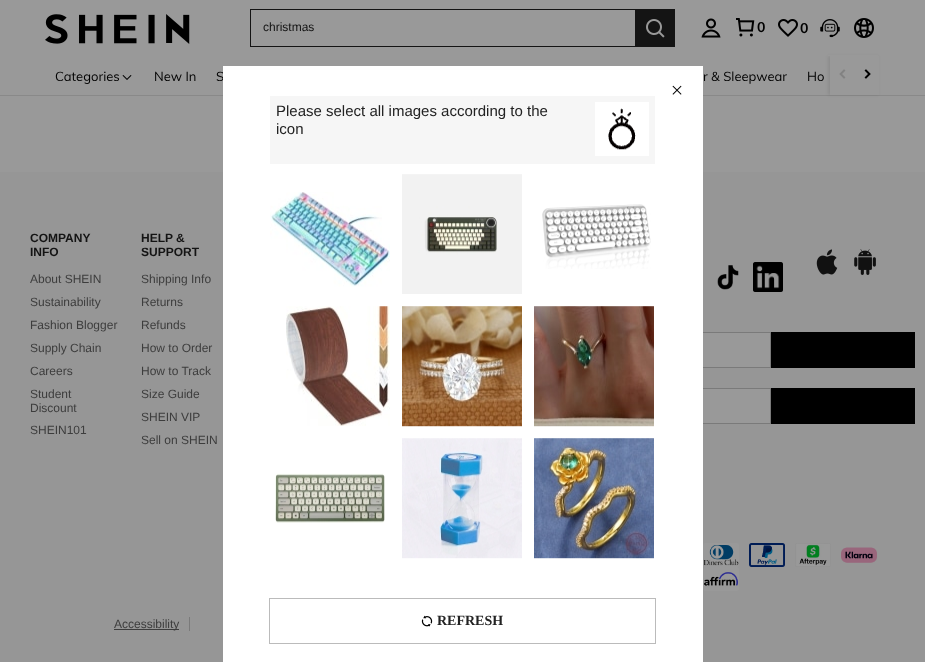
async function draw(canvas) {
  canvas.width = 925;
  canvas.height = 662;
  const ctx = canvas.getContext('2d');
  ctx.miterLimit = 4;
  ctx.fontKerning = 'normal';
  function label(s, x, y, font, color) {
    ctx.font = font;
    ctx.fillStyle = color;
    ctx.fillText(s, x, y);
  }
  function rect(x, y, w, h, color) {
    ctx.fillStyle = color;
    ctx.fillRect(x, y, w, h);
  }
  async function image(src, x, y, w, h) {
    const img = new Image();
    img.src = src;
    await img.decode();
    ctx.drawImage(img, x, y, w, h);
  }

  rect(0, 0, 925, 662, '#999');
  rect(0, 95, 925, 1, '#898989');
  ctx.fillStyle = '#00000014';
  ctx.filter = 'blur(1.5px)';
  ctx.beginPath();
  ctx.rect(828, 56, 50, 39);
  ctx.fill();
  ctx.filter = 'none';
  rect(828, 55, 50, 1, '#999');
  await image('assets/img1.png', 45, 14, 145, 30);
  rect(250, 9, 385, 1, '#141414');
  rect(250, 46, 385, 1, '#141414');
  rect(250, 9, 1, 38, '#141414');
  label('christmas', 263, 31, '12px Liberation Sans', '#141414');
  rect(635, 9, 40, 38, '#141414');
  await image('assets/img2.png', 646, 19, 19, 19);
  await image('assets/img3.png', 701, 18, 20, 20);
  await image('assets/img4.png', 736, 18, 19, 19);
  label('0', 757, 32, 'bold 14px Muli', '#000');
  await image('assets/img5.png', 778, 19, 20, 18);
  label('0', 800, 33, 'bold 14px Muli', '#000');
  await image('assets/img6.png', 820, 19, 20, 19);
  await image('assets/img7.png', 854, 18, 20, 20);
  label('Categories', 55, 81, '13px Muli', '#000');
  await image('assets/img8.png', 122, 75, 10, 5);
  label('New In', 154, 81, '13px Muli', '#000');
  label('S', 216, 81, '13px Muli', '#000');
  label('r & Sleepwear', 703, 81, '13px Muli', '#000');
  label('Ho', 807, 81, '13px Muli', '#000');
  rect(830, 56, 49, 39, '#999');
  await image('assets/img9.png', 839, 69, 7, 10);
  await image('assets/img10.png', 864, 69, 7, 10);
  rect(0, 172, 925, 490, '#969696');
  label('COMPANY', 30, 242, 'bold 12px Liberation Sans', '#141414');
  label('INFO', 30, 256, 'bold 12px Liberation Sans', '#141414');
  label('About SHEIN', 30, 283, '12px Liberation Sans', '#3d3d3d');
  label('Sustainability', 30, 306, '12px Liberation Sans', '#3d3d3d');
  label('Fashion Blogger', 30, 329, '12px Liberation Sans', '#3d3d3d');
  label('Supply Chain', 30, 352, '12px Liberation Sans', '#3d3d3d');
  label('Careers', 30, 375, '12px Liberation Sans', '#3d3d3d');
  label('Student', 30, 398, '12px Liberation Sans', '#3d3d3d');
  label('Discount', 30, 412, '12px Liberation Sans', '#3d3d3d');
  label('SHEIN101', 30, 434, '12px Liberation Sans', '#3d3d3d');
  label('HELP &', 141, 242, 'bold 12px Liberation Sans', '#141414');
  label('SUPPORT', 141, 256, 'bold 12px Liberation Sans', '#141414');
  label('Shipping Info', 141, 283, '12px Liberation Sans', '#3d3d3d');
  label('Returns', 141, 306, '12px Liberation Sans', '#3d3d3d');
  label('Refunds', 141, 329, '12px Liberation Sans', '#3d3d3d');
  label('How to Order', 141, 352, '12px Liberation Sans', '#3d3d3d');
  label('How to Track', 141, 375, '12px Liberation Sans', '#3d3d3d');
  label('Size Guide', 141, 398, '12px Liberation Sans', '#3d3d3d');
  label('SHEIN VIP', 141, 421, '12px Liberation Sans', '#3d3d3d');
  label('Sell on SHEIN', 141, 444, '12px Liberation Sans', '#3d3d3d');
  await image('assets/img11.png', 717, 265, 22, 25);
  await image('assets/img12.png', 753, 262, 30, 30);
  await image('assets/img13.png', 816, 249, 22, 26);
  await image('assets/img14.png', 854, 249, 22, 26);
  rect(703, 333, 67, 34, '#999');
  ctx.strokeStyle = '#7a7a7a';
  ctx.strokeRect(473.5, 332.5, 297, 35);
  rect(771, 332, 144, 36, '#000');
  rect(703, 389, 67, 34, '#999');
  ctx.strokeRect(553.5, 388.5, 217, 35);
  rect(771, 388, 144, 36, '#000');
  await image('assets/img15.png', 703, 543, 36, 24);
  await image('assets/img16.png', 749, 543, 36, 24);
  await image('assets/img17.png', 795, 543, 36, 24);
  await image('assets/img18.png', 841, 547, 36, 16);
  await image('assets/img19.png', 703, 567, 36, 24);
  rect(189, 617, 1, 14, '#7a7a7a');
  rect(114, 629, 65, 1, '#3d3d3d');
  label('Accessibility', 114, 628, '12px Liberation Sans', '#3d3d3d');
  ctx.fillStyle = '#0000004d';
  ctx.filter = 'blur(0.5px)';
  ctx.beginPath();
  ctx.rect(223, 66, 480, 530);
  ctx.fill();
  ctx.filter = 'none';
  rect(223, 66, 480, 596, '#fff');
  await image('assets/img20.png', 672, 85, 10, 10);
  rect(270, 96, 385, 68, '#f6f6f6');
  label('Please select all images according to the', 276, 116, '15px Liberation Sans', '#222');
  label('icon', 276, 134, '15px Liberation Sans', '#222');
  rect(595, 102, 54, 54, '#fff');
  await image('assets/img21.png', 608, 108, 28, 42);
  await image('assets/img22.png', 270, 192, 120, 95);
  await image('assets/img23.png', 402, 174, 120, 120);
  await image('assets/img24.png', 542, 204, 109, 65);
  await image('assets/img25.png', 286, 306, 104, 120);
  await image('assets/img26.png', 402, 306, 120, 121);
  await image('assets/img27.png', 534, 306, 120, 121);
  await image('assets/img28.png', 275, 473, 110, 50);
  await image('assets/img29.png', 402, 438, 120, 121);
  await image('assets/img30.png', 534, 438, 120, 121);
  ctx.strokeStyle = '#bbb';
  ctx.strokeRect(269.5, 598.5, 386, 45);
  await image('assets/img31.png', 421, 615, 12, 12);
  label('REFRESH', 437, 625, 'bold 14px Liberation Serif', '#222');
}

draw(document.querySelector('canvas'));
